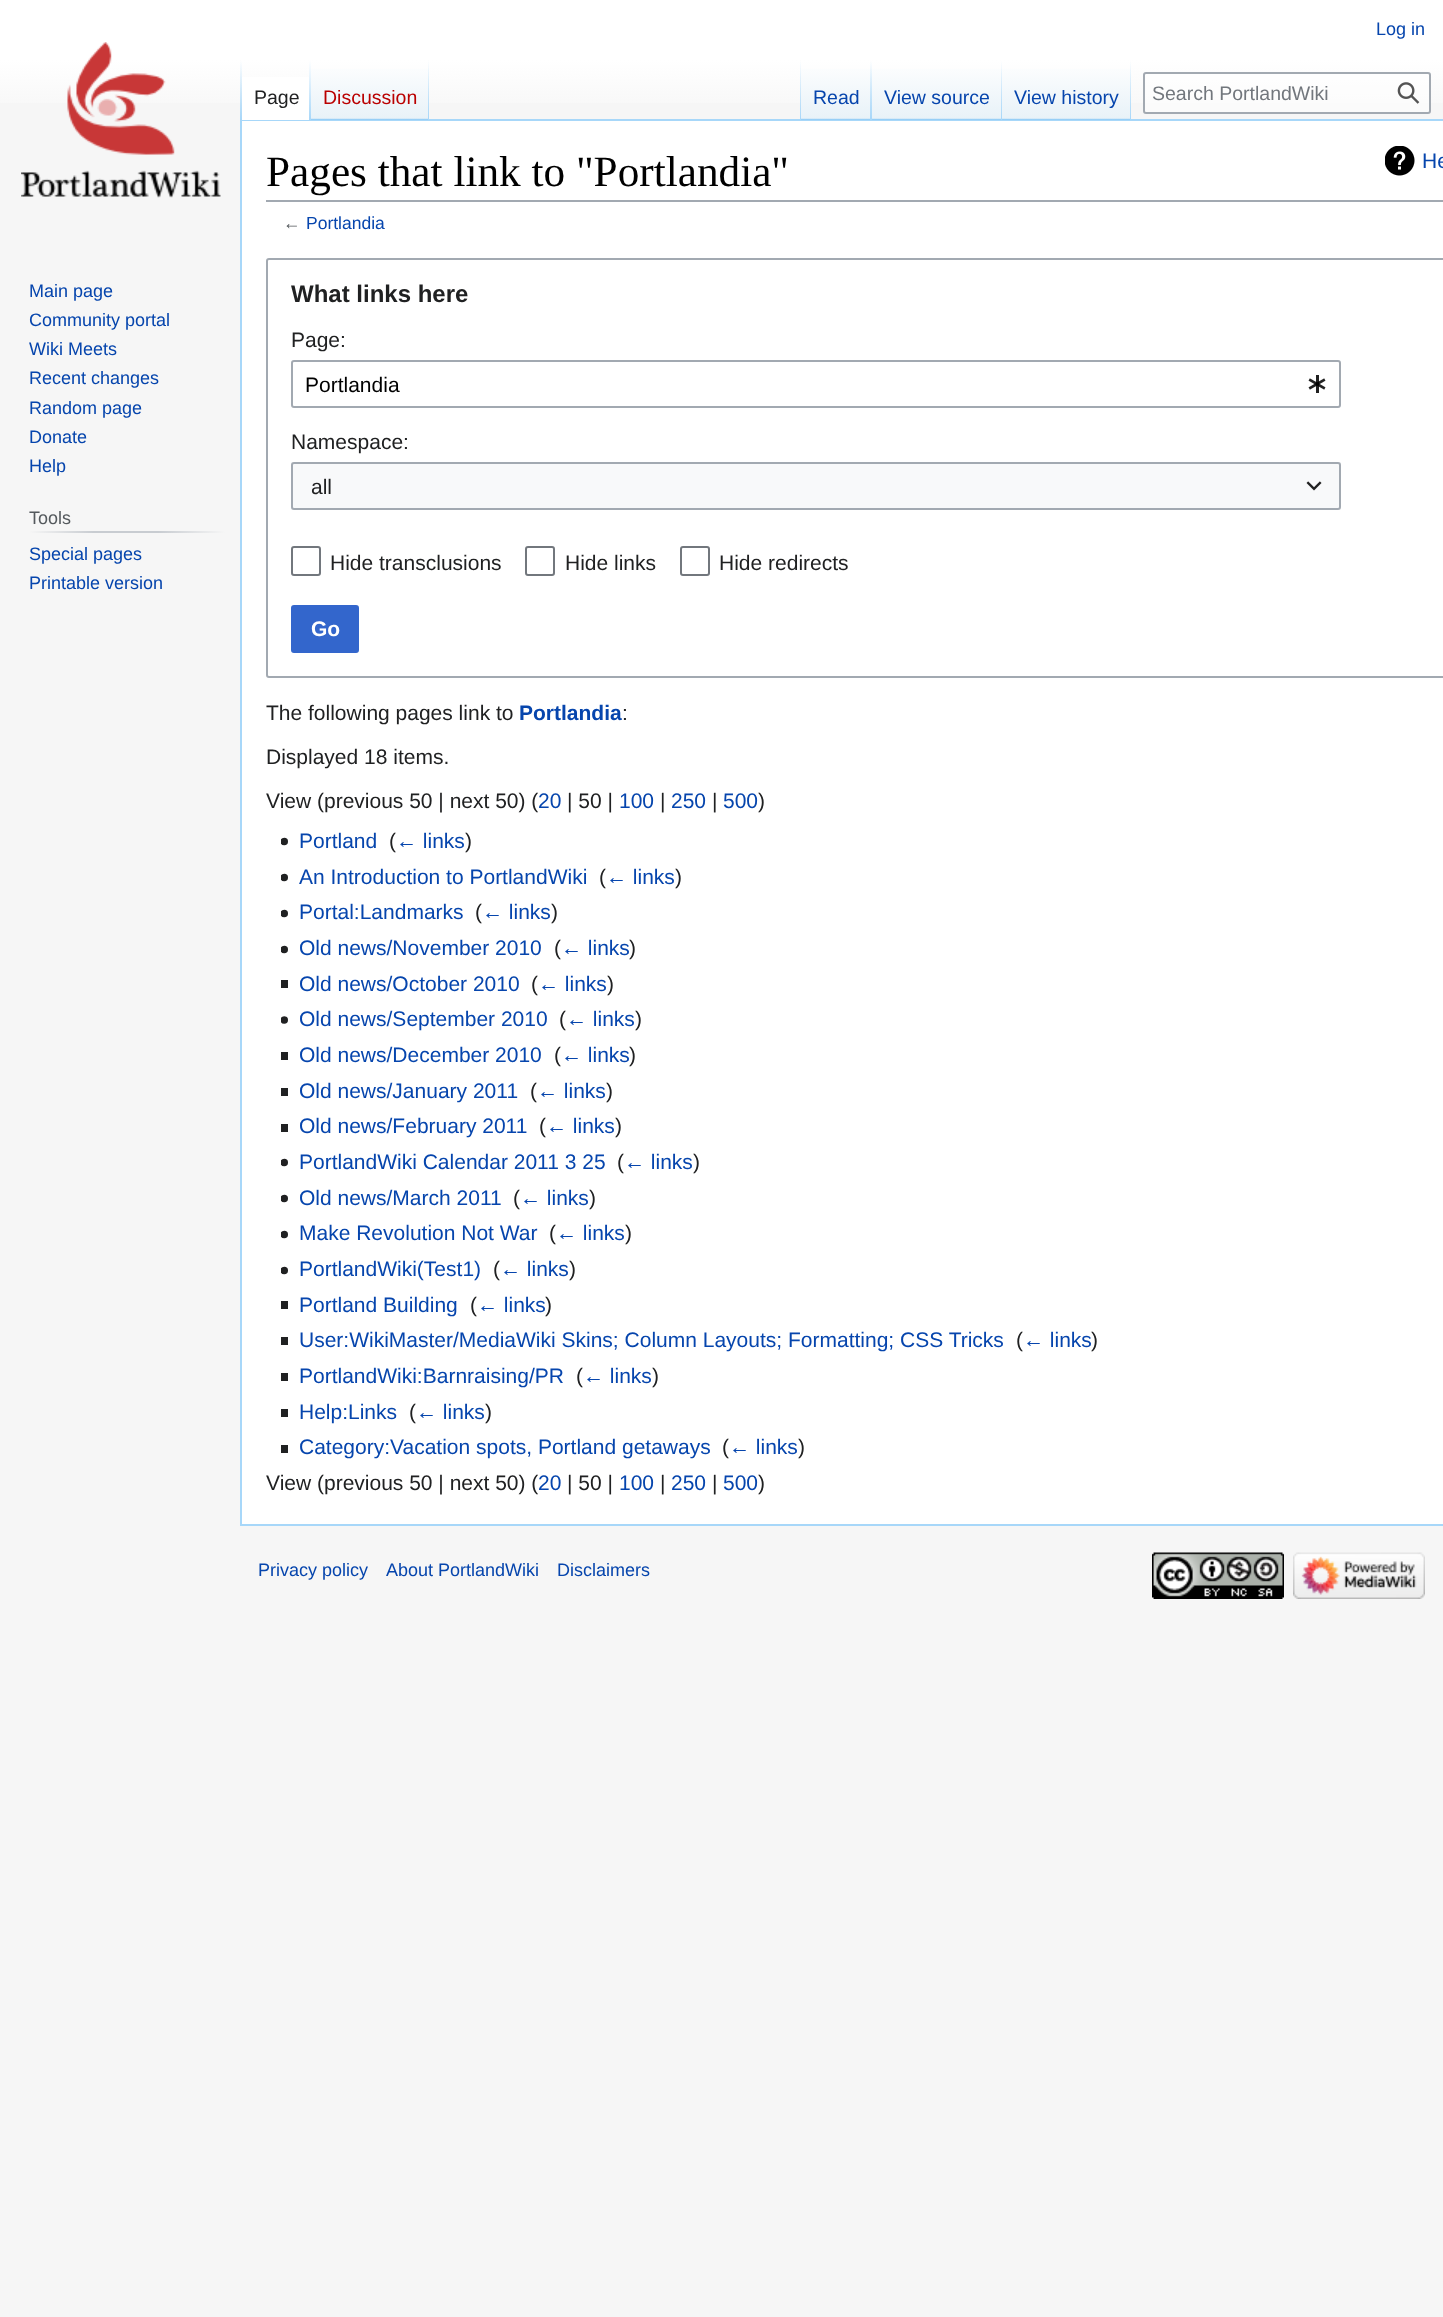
async function draw(canvas) {
  canvas.width = 1443;
  canvas.height = 2317;
  const ctx = canvas.getContext('2d');
  ctx.miterLimit = 4;
  ctx.fontKerning = 'normal';
  function label(s, x, y, font, color) {
    ctx.font = font;
    ctx.fillStyle = color;
    ctx.fillText(s, x, y);
  }
  function rect(x, y, w, h, color) {
    ctx.fillStyle = color;
    ctx.fillRect(x, y, w, h);
  }
  async function image(src, x, y, w, h) {
    const img = new Image();
    img.src = src;
    await img.decode();
    ctx.drawImage(img, x, y, w, h);
  }
  let gradient;

  rect(0, 0, 1443, 2317, '#f6f6f6');
  gradient = ctx.createLinearGradient(722, 0, 722, 120);
  gradient.addColorStop(0.5, '#fff');
  gradient.addColorStop(1, '#f6f6f6');
  ctx.fillStyle = gradient;
  ctx.fillRect(0, 0, 1443, 103);
  label('Log in', 1376, 35, '18px Liberation Sans', '#0645ad');
  rect(240, 119, 1203, 2, '#a7d7f9');
  rect(240, 1524, 1203, 2, '#a7d7f9');
  rect(240, 119, 2, 1407, '#a7d7f9');
  gradient = ctx.createLinearGradient(241, 60, 241, 120);
  gradient.addColorStop(0, '#a7d7f900');
  gradient.addColorStop(1, '#a7d7f9');
  ctx.fillStyle = gradient;
  ctx.fillRect(240, 60, 2, 60);
  rect(242, 77, 67, 43, '#fff');
  gradient = ctx.createLinearGradient(310, 60, 310, 120);
  gradient.addColorStop(0, '#fff');
  gradient.addColorStop(1, '#a7d7f9');
  ctx.fillStyle = gradient;
  ctx.fillRect(309, 60, 2, 60);
  label('Page', 254, 104, '19.5px Liberation Sans', '#202122');
  gradient = ctx.createLinearGradient(370, 120, 370, 60);
  gradient.addColorStop(0, '#77c1f6');
  gradient.addColorStop(0.03, '#e8f2f8');
  gradient.addColorStop(1, '#fff');
  ctx.fillStyle = gradient;
  ctx.fillRect(311, 69, 118, 51);
  gradient = ctx.createLinearGradient(428, 60, 428, 120);
  gradient.addColorStop(0, '#a7d7f900');
  gradient.addColorStop(1, '#a7d7f9');
  ctx.fillStyle = gradient;
  ctx.fillRect(428, 60, 1, 60);
  label('Discussion', 323, 104, '19.5px Liberation Sans', '#ba0000');
  gradient = ctx.createLinearGradient(800, 60, 800, 120);
  gradient.addColorStop(0, '#a7d7f900');
  gradient.addColorStop(1, '#a7d7f9');
  ctx.fillStyle = gradient;
  ctx.fillRect(800, 60, 1, 60);
  gradient = ctx.createLinearGradient(836, 120, 836, 60);
  gradient.addColorStop(0, '#77c1f6');
  gradient.addColorStop(0.03, '#e8f2f8');
  gradient.addColorStop(1, '#fff');
  ctx.fillStyle = gradient;
  ctx.fillRect(801, 69, 71, 51);
  gradient = ctx.createLinearGradient(871, 60, 871, 120);
  gradient.addColorStop(0, '#a7d7f900');
  gradient.addColorStop(1, '#a7d7f9');
  ctx.fillStyle = gradient;
  ctx.fillRect(870, 60, 2, 60);
  label('Read', 813, 104, '19.5px Liberation Sans', '#0645ad');
  gradient = ctx.createLinearGradient(937, 120, 937, 60);
  gradient.addColorStop(0, '#77c1f6');
  gradient.addColorStop(0.03, '#e8f2f8');
  gradient.addColorStop(1, '#fff');
  ctx.fillStyle = gradient;
  ctx.fillRect(872, 69, 130, 51);
  gradient = ctx.createLinearGradient(1001, 60, 1001, 120);
  gradient.addColorStop(0, '#a7d7f900');
  gradient.addColorStop(1, '#a7d7f9');
  ctx.fillStyle = gradient;
  ctx.fillRect(1001, 60, 1, 60);
  label('View source', 884, 104, '19.5px Liberation Sans', '#0645ad');
  gradient = ctx.createLinearGradient(1067, 120, 1067, 60);
  gradient.addColorStop(0, '#77c1f6');
  gradient.addColorStop(0.03, '#e8f2f8');
  gradient.addColorStop(1, '#fff');
  ctx.fillStyle = gradient;
  ctx.fillRect(1002, 69, 129, 51);
  gradient = ctx.createLinearGradient(1130, 60, 1130, 120);
  gradient.addColorStop(0, '#a7d7f900');
  gradient.addColorStop(1, '#a7d7f9');
  ctx.fillStyle = gradient;
  ctx.fillRect(1130, 60, 1, 60);
  label('View history', 1014, 104, '19.5px Liberation Sans', '#0645ad');
  ctx.fillStyle = '#ffffff80';
  ctx.beginPath();
  ctx.roundRect(1144, 73, 286, 40, 2);
  ctx.fill();
  ctx.strokeStyle = '#a2a9b1';
  ctx.lineWidth = 2;
  ctx.stroke();
  label('Search PortlandWiki', 1152, 100, '19.5px Liberation Sans', '#72777d');
  await image('assets/img1.png', 1397, 82, 23, 22);
  await image('assets/img2.png', 21, 42, 200, 156);
  label('Main page', 29, 297, '18px Liberation Sans', '#0645ad');
  label('Community portal', 29, 326, '18px Liberation Sans', '#0645ad');
  label('Wiki Meets', 29, 355, '18px Liberation Sans', '#0645ad');
  label('Recent changes', 29, 384, '18px Liberation Sans', '#0645ad');
  label('Random page', 29, 414, '18px Liberation Sans', '#0645ad');
  label('Donate', 29, 443, '18px Liberation Sans', '#0645ad');
  label('Help', 29, 472, '18px Liberation Sans', '#0645ad');
  gradient = ctx.createLinearGradient(29, 532, 225, 532);
  gradient.addColorStop(0, '#f6f6f6');
  gradient.addColorStop(0.33, '#c8ccd1');
  gradient.addColorStop(0.66, '#c8ccd1');
  gradient.addColorStop(1, '#f6f6f6');
  ctx.fillStyle = gradient;
  ctx.fillRect(29, 531, 196, 2);
  label('Tools', 29, 524, '18px Liberation Sans', '#54595d');
  label('Special pages', 29, 560, '18px Liberation Sans', '#0645ad');
  label('Printable version', 29, 589, '18px Liberation Sans', '#0645ad');
  rect(242, 121, 1201, 1403, '#fff');
  rect(266, 200, 1177, 2, '#a2a9b1');
  label('Pages that link to "Portlandia"', 266, 186, '43.25px Liberation Serif', '#000');
  await image('assets/img3.png', 1385, 146, 30, 30);
  label('He', 1422, 168, '21px Liberation Sans', '#0645ad');
  label('←', 283, 229, '17.5px Liberation Sans', '#54595d');
  label('Portlandia', 306, 229, '17.5px Liberation Sans', '#0645ad');
  ctx.beginPath();
  ctx.roundRect(267, 259, 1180, 418, 2);
  ctx.stroke();
  label('What links here', 291, 302, 'bold 24px Liberation Sans', '#202122');
  label('Page:', 291, 347, '21px Liberation Sans', '#202122');
  ctx.beginPath();
  ctx.roundRect(292, 361, 1048, 46, 2);
  ctx.stroke();
  label('Portlandia', 305, 392, '21px Liberation Sans', '#000');
  await image('assets/img4.png', 1308, 375, 18, 18);
  label('Namespace:', 291, 449, '21px Liberation Sans', '#202122');
  rect(291, 462, 1050, 48, '#f8f9fa');
  ctx.beginPath();
  ctx.roundRect(292, 463, 1048, 46, 2);
  ctx.stroke();
  label('all', 311, 494, '21px Liberation Sans', '#202122');
  await image('assets/img5.png', 1306, 481, 16, 10);
  ctx.beginPath();
  ctx.roundRect(292, 547, 28, 28, 2);
  ctx.strokeStyle = '#72777d';
  ctx.stroke();
  label('Hide transclusions', 330, 570, '21px Liberation Sans', '#202122');
  ctx.beginPath();
  ctx.roundRect(526, 547, 28, 28, 2);
  ctx.stroke();
  label('Hide links', 565, 570, '21px Liberation Sans', '#202122');
  ctx.beginPath();
  ctx.roundRect(681, 547, 28, 28, 2);
  ctx.stroke();
  label('Hide redirects', 719, 570, '21px Liberation Sans', '#202122');
  ctx.fillStyle = '#36c';
  ctx.beginPath();
  ctx.roundRect(292, 606, 66, 46, 2);
  ctx.fill();
  ctx.strokeStyle = '#36c';
  ctx.stroke();
  label('Go', 311, 636, 'bold 21px Liberation Sans', '#fff');
  label('The following pages link to', 266, 720, '21px Liberation Sans', '#202122');
  label('Portlandia', 519, 720, 'bold 21px Liberation Sans', '#0645ad');
  label(':', 622, 720, '21px Liberation Sans', '#202122');
  label('Displayed 18 items.', 266, 764, '21px Liberation Sans', '#202122');
  label('View (previous 50 | next 50) (', 266, 808, '21px Liberation Sans', '#202122');
  label('20', 538, 808, '21px Liberation Sans', '#0645ad');
  label('| 50 |', 567, 808, '21px Liberation Sans', '#202122');
  label('100', 619, 808, '21px Liberation Sans', '#0645ad');
  label('|', 660, 808, '21px Liberation Sans', '#202122');
  label('250', 671, 808, '21px Liberation Sans', '#0645ad');
  label('|', 712, 808, '21px Liberation Sans', '#202122');
  label('500', 723, 808, '21px Liberation Sans', '#0645ad');
  label(')', 758, 808, '21px Liberation Sans', '#202122');
  await image('assets/img6.png', 281, 837, 7, 9);
  label('Portland', 299, 848, '21px Liberation Sans', '#0645ad');
  label('(', 389, 848, '21px Liberation Sans', '#202122');
  label('← links', 396, 848, '21px Liberation Sans', '#0645ad');
  label(')', 465, 848, '21px Liberation Sans', '#202122');
  await image('assets/img6.png', 281, 873, 7, 9);
  label('An Introduction to PortlandWiki', 299, 884, '21px Liberation Sans', '#0645ad');
  label('(', 599, 884, '21px Liberation Sans', '#202122');
  label('← links', 606, 884, '21px Liberation Sans', '#0645ad');
  label(')', 675, 884, '21px Liberation Sans', '#202122');
  await image('assets/img6.png', 281, 909, 7, 9);
  label('Portal:Landmarks', 299, 919, '21px Liberation Sans', '#0645ad');
  label('(', 475, 919, '21px Liberation Sans', '#202122');
  label('← links', 482, 919, '21px Liberation Sans', '#0645ad');
  label(')', 551, 919, '21px Liberation Sans', '#202122');
  await image('assets/img6.png', 281, 945, 7, 9);
  label('Old news/November 2010', 299, 955, '21px Liberation Sans', '#0645ad');
  label('(', 554, 955, '21px Liberation Sans', '#202122');
  label('← links', 561, 955, '21px Liberation Sans', '#0645ad');
  label(')', 629, 955, '21px Liberation Sans', '#202122');
  rect(281, 980, 7, 8, '#202122');
  label('Old news/October 2010', 299, 991, '21px Liberation Sans', '#0645ad');
  label('(', 531, 991, '21px Liberation Sans', '#202122');
  label('← links', 538, 991, '21px Liberation Sans', '#0645ad');
  label(')', 607, 991, '21px Liberation Sans', '#202122');
  await image('assets/img7.png', 281, 1016, 7, 8);
  label('Old news/September 2010', 299, 1026, '21px Liberation Sans', '#0645ad');
  label('(', 559, 1026, '21px Liberation Sans', '#202122');
  label('← links', 566, 1026, '21px Liberation Sans', '#0645ad');
  label(')', 635, 1026, '21px Liberation Sans', '#202122');
  rect(281, 1052, 7, 8, '#202122');
  label('Old news/December 2010', 299, 1062, '21px Liberation Sans', '#0645ad');
  label('(', 554, 1062, '21px Liberation Sans', '#202122');
  label('← links', 561, 1062, '21px Liberation Sans', '#0645ad');
  label(')', 629, 1062, '21px Liberation Sans', '#202122');
  rect(281, 1088, 7, 8, '#202122');
  label('Old news/January 2011', 299, 1098, '21px Liberation Sans', '#0645ad');
  label('(', 530, 1098, '21px Liberation Sans', '#202122');
  label('← links', 537, 1098, '21px Liberation Sans', '#0645ad');
  label(')', 606, 1098, '21px Liberation Sans', '#202122');
  rect(281, 1124, 7, 8, '#202122');
  label('Old news/February 2011', 299, 1133, '21px Liberation Sans', '#0645ad');
  label('(', 539, 1133, '21px Liberation Sans', '#202122');
  label('← links', 546, 1133, '21px Liberation Sans', '#0645ad');
  label(')', 615, 1133, '21px Liberation Sans', '#202122');
  await image('assets/img6.png', 281, 1158, 7, 9);
  label('PortlandWiki Calendar 2011 3 25', 299, 1169, '21px Liberation Sans', '#0645ad');
  label('(', 617, 1169, '21px Liberation Sans', '#202122');
  label('← links', 624, 1169, '21px Liberation Sans', '#0645ad');
  label(')', 693, 1169, '21px Liberation Sans', '#202122');
  await image('assets/img6.png', 281, 1194, 7, 9);
  label('Old news/March 2011', 299, 1205, '21px Liberation Sans', '#0645ad');
  label('(', 513, 1205, '21px Liberation Sans', '#202122');
  label('← links', 520, 1205, '21px Liberation Sans', '#0645ad');
  label(')', 589, 1205, '21px Liberation Sans', '#202122');
  await image('assets/img6.png', 281, 1230, 7, 9);
  label('Make Revolution Not War', 299, 1240, '21px Liberation Sans', '#0645ad');
  label('(', 549, 1240, '21px Liberation Sans', '#202122');
  label('← links', 556, 1240, '21px Liberation Sans', '#0645ad');
  label(')', 625, 1240, '21px Liberation Sans', '#202122');
  await image('assets/img8.png', 281, 1266, 7, 9);
  label('PortlandWiki(Test1)', 299, 1276, '21px Liberation Sans', '#0645ad');
  label('(', 493, 1276, '21px Liberation Sans', '#202122');
  label('← links', 500, 1276, '21px Liberation Sans', '#0645ad');
  label(')', 569, 1276, '21px Liberation Sans', '#202122');
  rect(281, 1301, 7, 8, '#202122');
  label('Portland Building', 299, 1312, '21px Liberation Sans', '#0645ad');
  label('(', 470, 1312, '21px Liberation Sans', '#202122');
  label('← links', 477, 1312, '21px Liberation Sans', '#0645ad');
  label(')', 545, 1312, '21px Liberation Sans', '#202122');
  rect(281, 1337, 7, 8, '#202122');
  label('User:WikiMaster/MediaWiki Skins; Column Layouts; Formatting; CSS Tricks', 299, 1347, '21px Liberation Sans', '#0645ad');
  label('(', 1016, 1347, '21px Liberation Sans', '#202122');
  label('← links', 1023, 1347, '21px Liberation Sans', '#0645ad');
  label(')', 1091, 1347, '21px Liberation Sans', '#202122');
  rect(281, 1373, 7, 8, '#202122');
  label('PortlandWiki:Barnraising/PR', 299, 1383, '21px Liberation Sans', '#0645ad');
  label('(', 576, 1383, '21px Liberation Sans', '#202122');
  label('← links', 583, 1383, '21px Liberation Sans', '#0645ad');
  label(')', 652, 1383, '21px Liberation Sans', '#202122');
  rect(281, 1409, 7, 8, '#202122');
  label('Help:Links', 299, 1419, '21px Liberation Sans', '#0645ad');
  label('(', 409, 1419, '21px Liberation Sans', '#202122');
  label('← links', 416, 1419, '21px Liberation Sans', '#0645ad');
  label(')', 485, 1419, '21px Liberation Sans', '#202122');
  rect(281, 1445, 7, 8, '#202122');
  label('Category:Vacation spots, Portland getaways', 299, 1454, '21px Liberation Sans', '#0645ad');
  label('(', 722, 1454, '21px Liberation Sans', '#202122');
  label('← links', 729, 1454, '21px Liberation Sans', '#0645ad');
  label(')', 798, 1454, '21px Liberation Sans', '#202122');
  label('View (previous 50 | next 50) (', 266, 1490, '21px Liberation Sans', '#202122');
  label('20', 538, 1490, '21px Liberation Sans', '#0645ad');
  label('| 50 |', 567, 1490, '21px Liberation Sans', '#202122');
  label('100', 619, 1490, '21px Liberation Sans', '#0645ad');
  label('|', 660, 1490, '21px Liberation Sans', '#202122');
  label('250', 671, 1490, '21px Liberation Sans', '#0645ad');
  label('|', 712, 1490, '21px Liberation Sans', '#202122');
  label('500', 723, 1490, '21px Liberation Sans', '#0645ad');
  label(')', 758, 1490, '21px Liberation Sans', '#202122');
  label('Privacy policy', 258, 1576, '18px Liberation Sans', '#0645ad');
  label('About PortlandWiki', 386, 1576, '18px Liberation Sans', '#0645ad');
  label('Disclaimers', 557, 1576, '18px Liberation Sans', '#0645ad');
  await image('assets/img9.png', 1152, 1552, 132, 47);
  await image('assets/img10.png', 1293, 1552, 132, 47);
}

draw(document.querySelector('canvas'));
